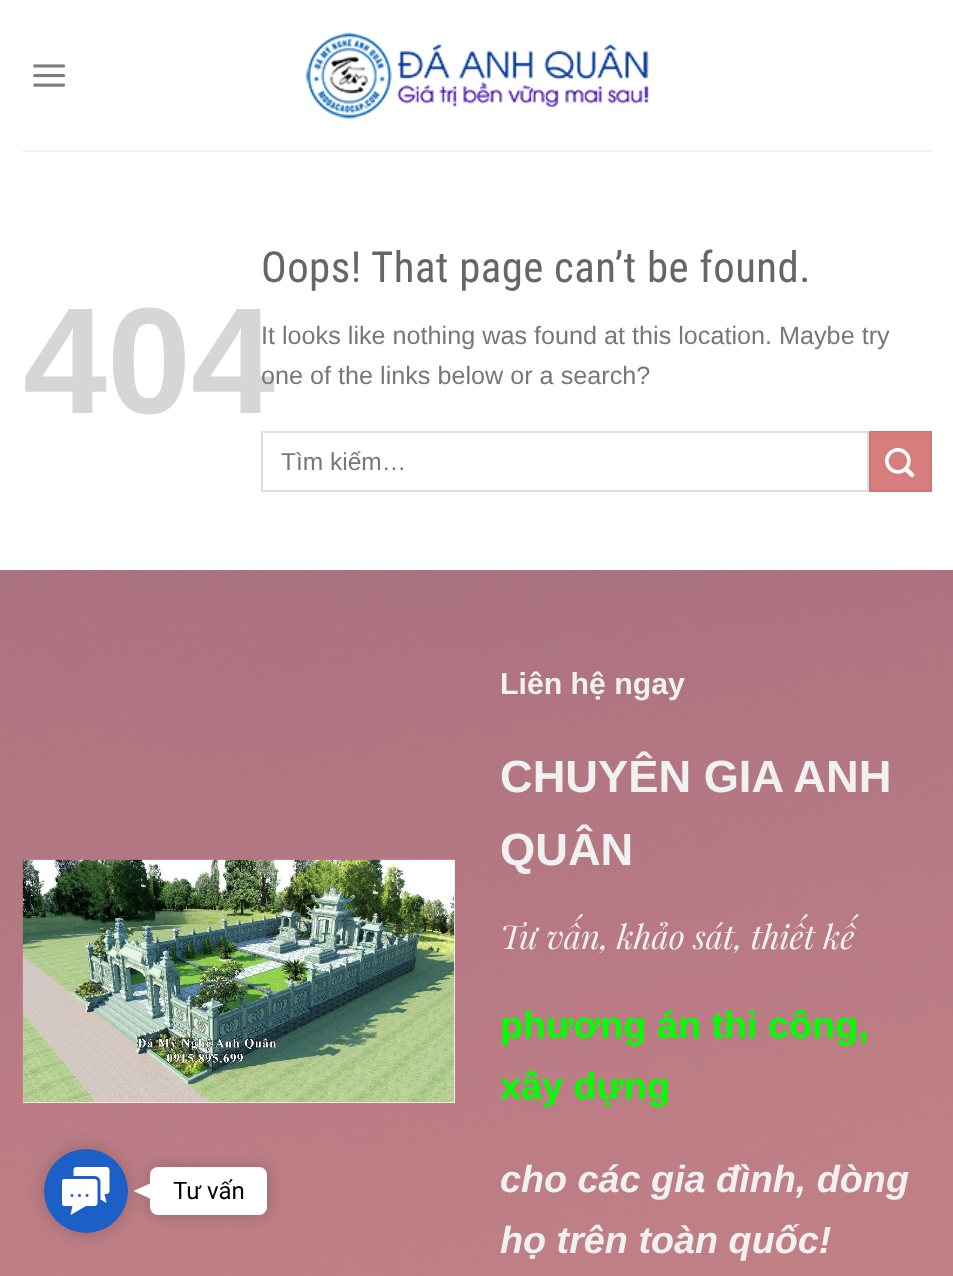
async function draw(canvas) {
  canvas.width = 953;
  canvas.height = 1276;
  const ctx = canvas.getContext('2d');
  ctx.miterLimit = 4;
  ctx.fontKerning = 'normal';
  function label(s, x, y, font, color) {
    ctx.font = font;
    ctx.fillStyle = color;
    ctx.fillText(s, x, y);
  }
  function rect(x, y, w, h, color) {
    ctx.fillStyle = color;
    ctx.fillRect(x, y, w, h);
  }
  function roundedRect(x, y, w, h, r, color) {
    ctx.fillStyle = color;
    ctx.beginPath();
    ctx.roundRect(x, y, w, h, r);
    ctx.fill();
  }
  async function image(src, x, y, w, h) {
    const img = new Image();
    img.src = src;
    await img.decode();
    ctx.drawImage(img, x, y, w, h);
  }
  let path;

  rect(0, 0, 953, 1276, '#fff');
  await image('assets/img1.png', 33, 64, 33, 23);
  await image('assets/img2.png', 305, 32, 344, 87);
  rect(23, 150, 909, 2, '#f1f1f1');
  label('404', 23, 413, 'bold 151px Liberation Sans', '#d6d6d6');
  ctx.letterSpacing = '0.45px';
  label('Oops! That page can’t be found.', 261, 282, '42.8px Roboto Condensed', '#666');
  ctx.letterSpacing = '0px';
  label('It looks like nothing was found at this location. Maybe try', 261, 344, '25.2px Liberation Sans', '#777');
  label('one of the links below or a search?', 261, 384, '25.2px Liberation Sans', '#777');
  ctx.strokeStyle = '#ddd';
  ctx.lineWidth = 2;
  ctx.strokeRect(262, 432, 606, 59);
  label('Tìm kiếm…', 281, 470, '24.5px Liberation Sans', '#777');
  ctx.fillStyle = '#d87d7d';
  ctx.beginPath();
  ctx.rect(870, 432, 61, 59);
  ctx.fill();
  ctx.strokeStyle = '#cd7777';
  ctx.stroke();
  await image('assets/img3.png', 885, 448, 30, 30);
  await image('assets/img4.png', 0, 570, 953, 706);
  rect(23, 860, 432, 243, '#ffffffde');
  await image('assets/img5.png', 22, 859, 433, 244);
  label('Liên hệ ngay', 500, 694, 'bold 30.25px Liberation Sans', '#f1f1f1');
  label('CHUYÊN GIA ANH', 500, 792, 'bold 45.25px Liberation Sans', '#f1f1f1');
  label('QUÂN', 500, 865, 'bold 45.25px Liberation Sans', '#f1f1f1');
  label('Tư vấn, khảo sát, thiết kế', 500, 949, 'italic 33px Playfair Display', '#f1f1f1');
  label('phương án thi công,', 500, 1038, 'bold 37.75px Liberation Sans', '#0f0');
  label('xây dựng', 500, 1099, 'bold 37.75px Liberation Sans', '#0f0');
  label('cho các gia đình, dòng', 500, 1192, 'italic bold 37.75px Liberation Sans', '#f1f1f1');
  label('họ trên toàn quốc!', 500, 1253, 'italic bold 37.75px Liberation Sans', '#f1f1f1');
  ctx.fillStyle = '#00000033';
  ctx.filter = 'blur(9px)';
  ctx.beginPath();
  ctx.roundRect(44, 1149, 84, 84, 42);
  ctx.fill();
  ctx.filter = 'none';
  ctx.fillStyle = '#1c5fc6';
  ctx.beginPath();
  ctx.arc(86, 1191, 42, 0, 2 * Math.PI);
  ctx.fill();
  await image('assets/img6.png', 62, 1167, 48, 48);
  ctx.fillStyle = '#00000033';
  ctx.filter = 'blur(7.5px)';
  ctx.beginPath();
  ctx.roundRect(150, 1167, 117, 48, 8);
  ctx.fill();
  ctx.filter = 'none';
  roundedRect(150, 1167, 117, 48, 8, '#fff');
  path = new Path2D('M150 1183.5V1198.5L133.5 1191Z');
  ctx.fill(path);
  label('Tư vấn', 173, 1199, '24px Roboto', '#000');
}

draw(document.querySelector('canvas'));
